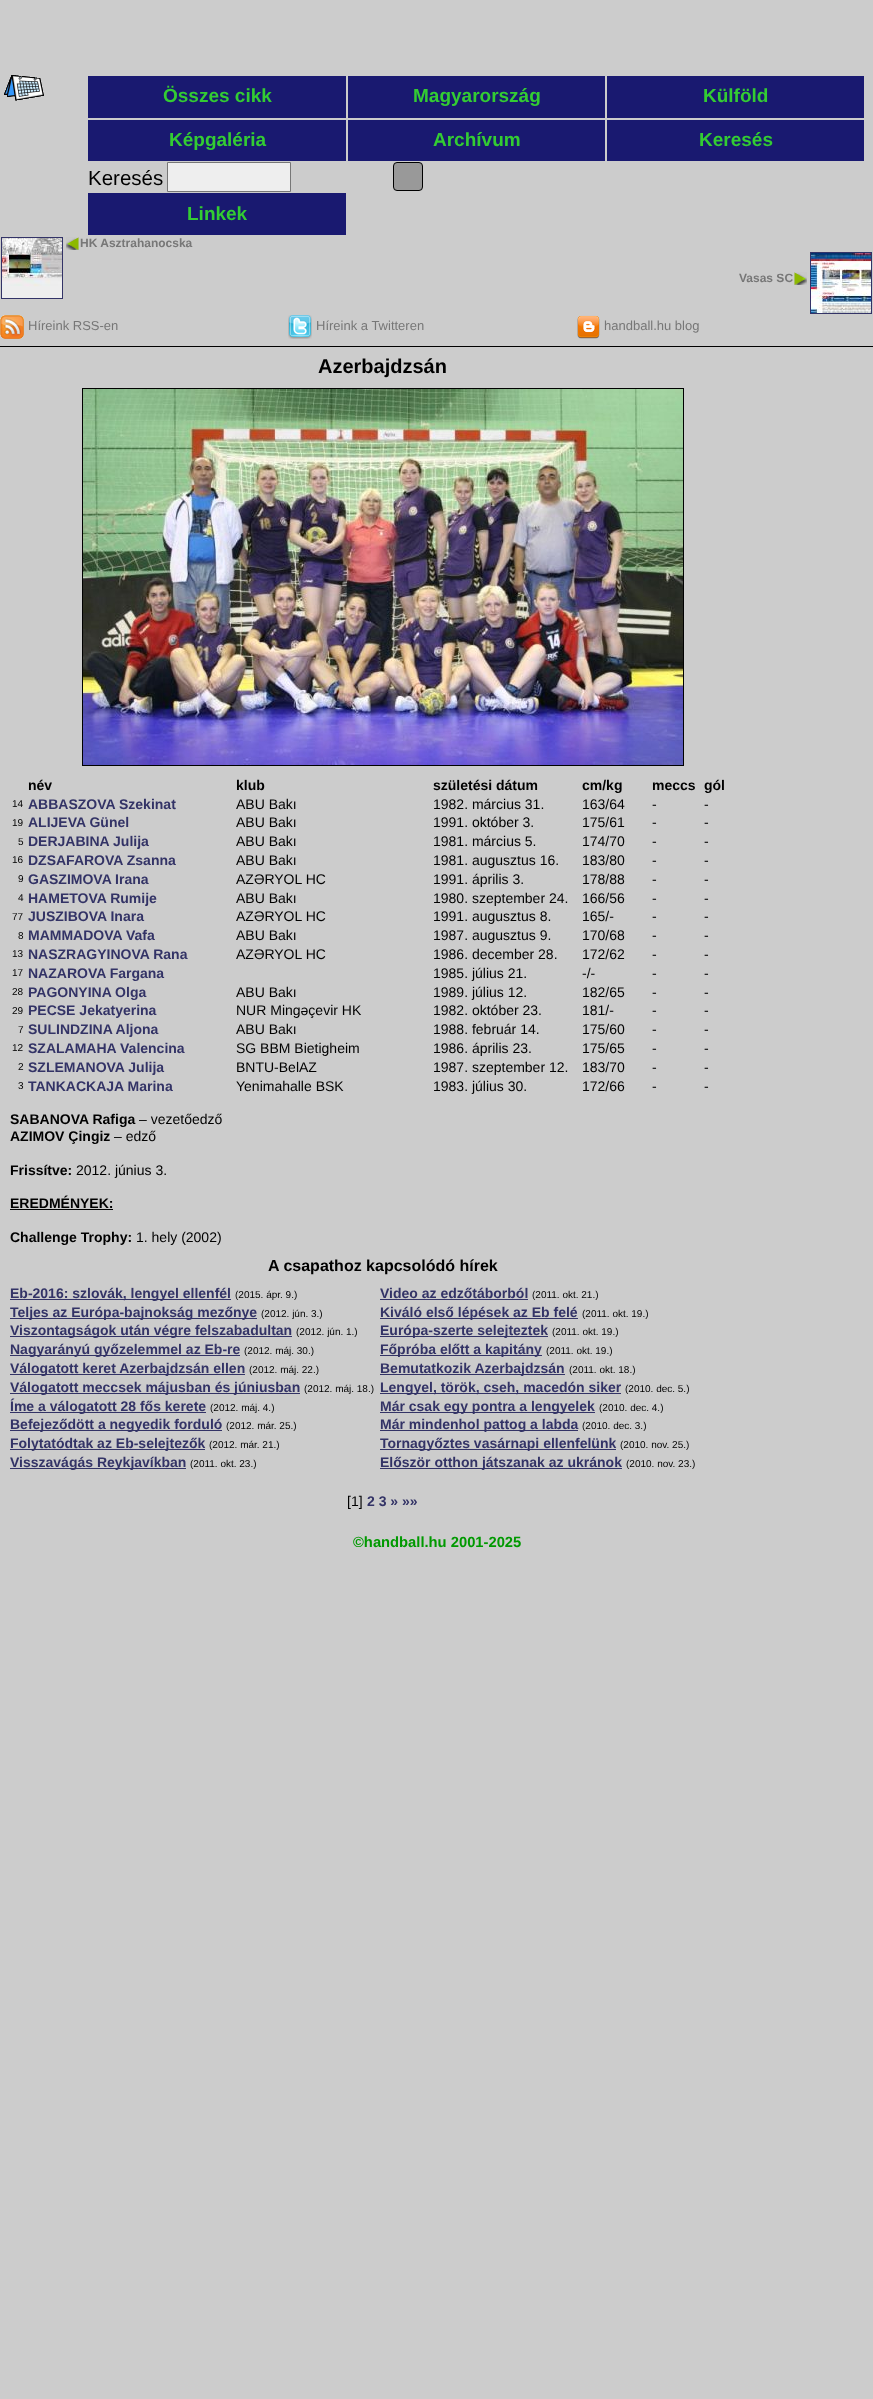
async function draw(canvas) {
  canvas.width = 873;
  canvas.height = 2399;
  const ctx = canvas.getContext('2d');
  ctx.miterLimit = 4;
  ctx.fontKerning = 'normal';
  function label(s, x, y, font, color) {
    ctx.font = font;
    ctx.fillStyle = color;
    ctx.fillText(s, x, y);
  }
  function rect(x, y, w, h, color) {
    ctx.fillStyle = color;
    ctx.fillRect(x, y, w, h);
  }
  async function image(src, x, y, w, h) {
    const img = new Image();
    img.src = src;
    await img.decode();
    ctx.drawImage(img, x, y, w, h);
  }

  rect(0, 0, 873, 2399, '#ccc');
  await image('assets/img1.png', 4, 75, 40, 26);
  rect(88, 76, 258, 42, '#191970');
  label('Összes cikk', 163, 102, 'bold 19px Liberation Sans', '#3c3');
  rect(348, 76, 257, 42, '#191970');
  label('Magyarország', 413, 102, 'bold 19px Liberation Sans', '#3c3');
  rect(607, 76, 257, 42, '#191970');
  label('Külföld', 703, 102, 'bold 19px Liberation Sans', '#3c3');
  rect(88, 120, 258, 41, '#191970');
  label('Képgaléria', 169, 146, 'bold 19px Liberation Sans', '#3c3');
  rect(348, 120, 257, 41, '#191970');
  label('Archívum', 433, 146, 'bold 19px Liberation Sans', '#3c3');
  rect(607, 120, 257, 41, '#191970');
  label('Keresés', 699, 146, 'bold 19px Liberation Sans', '#3c3');
  label('Keresés', 88, 185, '20.5px Liberation Sans', '#000');
  ctx.fillStyle = '#eee';
  ctx.beginPath();
  ctx.rect(167.5, 162.5, 123, 29);
  ctx.fill();
  ctx.strokeStyle = '#777';
  ctx.stroke();
  ctx.fillStyle = '#999';
  ctx.beginPath();
  ctx.roundRect(393.5, 162.5, 29, 28, 3.5);
  ctx.fill();
  ctx.strokeStyle = '#000';
  ctx.stroke();
  rect(88, 193, 258, 42, '#191970');
  label('Linkek', 187, 220, 'bold 19px Liberation Sans', '#3c3');
  ctx.strokeStyle = '#333367';
  ctx.strokeRect(1.5, 237.5, 61, 61);
  await image('assets/img2.png', 2, 238, 60, 60);
  await image('assets/img3.png', 66, 237, 13, 13);
  label('HK Asztrahanocska', 80, 247, 'bold 12px Liberation Sans', '#777');
  await image('assets/img4.png', 794, 272, 13, 13);
  label('Vasas SC', 739, 282, 'bold 12px Liberation Sans', '#777');
  ctx.strokeRect(810.5, 252.5, 61, 61);
  await image('assets/img5.png', 811, 253, 60, 60);
  await image('assets/img6.png', 0, 315, 24, 24);
  label('Híreink RSS-en', 28, 330, '13px Liberation Sans', '#777');
  await image('assets/img7.png', 288, 315, 24, 24);
  label('Híreink a Twitteren', 316, 330, '13px Liberation Sans', '#777');
  await image('assets/img8.png', 577, 315, 23, 24);
  label('handball.hu blog', 604, 330, '13px Liberation Sans', '#777');
  rect(0, 346, 873, 1, '#000');
  label('Azerbajdzsán', 318, 373, 'bold 20px Liberation Sans', '#000');
  ctx.strokeStyle = '#000';
  ctx.strokeRect(82.5, 388.5, 601, 377);
  await image('assets/img9.png', 83, 389, 600, 376);
  label('név', 28, 790, 'bold 14px Liberation Sans', '#000');
  label('klub', 236, 790, 'bold 14px Liberation Sans', '#000');
  label('születési dátum', 433, 790, 'bold 14px Liberation Sans', '#000');
  label('cm/kg', 582, 790, 'bold 14px Liberation Sans', '#000');
  label('meccs', 652, 790, 'bold 14px Liberation Sans', '#000');
  label('gól', 704, 790, 'bold 14px Liberation Sans', '#000');
  label('14', 12, 807, '10px Liberation Sans', '#000');
  label('ABBASZOVA Szekinat', 28, 809, 'bold 14px Liberation Sans', '#336');
  label('ABU Bakı', 236, 809, '14px Liberation Sans', '#000');
  label('1982. március 31.', 433, 809, '14px Liberation Sans', '#000');
  label('163/64', 582, 809, '14px Liberation Sans', '#000');
  label('-', 652, 809, '14px Liberation Sans', '#000');
  label('-', 704, 809, '14px Liberation Sans', '#000');
  label('19', 12, 826, '10px Liberation Sans', '#000');
  label('ALIJEVA Günel', 28, 827, 'bold 14px Liberation Sans', '#336');
  label('ABU Bakı', 236, 827, '14px Liberation Sans', '#000');
  label('1991. október 3.', 433, 827, '14px Liberation Sans', '#000');
  label('175/61', 582, 827, '14px Liberation Sans', '#000');
  label('-', 652, 827, '14px Liberation Sans', '#000');
  label('-', 704, 827, '14px Liberation Sans', '#000');
  label('5', 18, 845, '10px Liberation Sans', '#000');
  label('DERJABINA Julija', 28, 846, 'bold 14px Liberation Sans', '#336');
  label('ABU Bakı', 236, 846, '14px Liberation Sans', '#000');
  label('1981. március 5.', 433, 846, '14px Liberation Sans', '#000');
  label('174/70', 582, 846, '14px Liberation Sans', '#000');
  label('-', 652, 846, '14px Liberation Sans', '#000');
  label('-', 704, 846, '14px Liberation Sans', '#000');
  label('16', 12, 863, '10px Liberation Sans', '#000');
  label('DZSAFAROVA Zsanna', 28, 865, 'bold 14px Liberation Sans', '#336');
  label('ABU Bakı', 236, 865, '14px Liberation Sans', '#000');
  label('1981. augusztus 16.', 433, 865, '14px Liberation Sans', '#000');
  label('183/80', 582, 865, '14px Liberation Sans', '#000');
  label('-', 652, 865, '14px Liberation Sans', '#000');
  label('-', 704, 865, '14px Liberation Sans', '#000');
  label('9', 18, 882, '10px Liberation Sans', '#000');
  label('GASZIMOVA Irana', 28, 884, 'bold 14px Liberation Sans', '#336');
  label('AZƏRYOL HC', 236, 884, '14px Liberation Sans', '#000');
  label('1991. április 3.', 433, 884, '14px Liberation Sans', '#000');
  label('178/88', 582, 884, '14px Liberation Sans', '#000');
  label('-', 652, 884, '14px Liberation Sans', '#000');
  label('-', 704, 884, '14px Liberation Sans', '#000');
  label('4', 18, 901, '10px Liberation Sans', '#000');
  label('HAMETOVA Rumije', 28, 903, 'bold 14px Liberation Sans', '#336');
  label('ABU Bakı', 236, 903, '14px Liberation Sans', '#000');
  label('1980. szeptember 24.', 433, 903, '14px Liberation Sans', '#000');
  label('166/56', 582, 903, '14px Liberation Sans', '#000');
  label('-', 652, 903, '14px Liberation Sans', '#000');
  label('-', 704, 903, '14px Liberation Sans', '#000');
  label('77', 12, 920, '10px Liberation Sans', '#000');
  label('JUSZIBOVA Inara', 28, 921, 'bold 14px Liberation Sans', '#336');
  label('AZƏRYOL HC', 236, 921, '14px Liberation Sans', '#000');
  label('1991. augusztus 8.', 433, 921, '14px Liberation Sans', '#000');
  label('165/-', 582, 921, '14px Liberation Sans', '#000');
  label('-', 652, 921, '14px Liberation Sans', '#000');
  label('-', 704, 921, '14px Liberation Sans', '#000');
  label('8', 18, 939, '10px Liberation Sans', '#000');
  label('MAMMADOVA Vafa', 28, 940, 'bold 14px Liberation Sans', '#336');
  label('ABU Bakı', 236, 940, '14px Liberation Sans', '#000');
  label('1987. augusztus 9.', 433, 940, '14px Liberation Sans', '#000');
  label('170/68', 582, 940, '14px Liberation Sans', '#000');
  label('-', 652, 940, '14px Liberation Sans', '#000');
  label('-', 704, 940, '14px Liberation Sans', '#000');
  label('13', 12, 957, '10px Liberation Sans', '#000');
  label('NASZRAGYINOVA Rana', 28, 959, 'bold 14px Liberation Sans', '#336');
  label('AZƏRYOL HC', 236, 959, '14px Liberation Sans', '#000');
  label('1986. december 28.', 433, 959, '14px Liberation Sans', '#000');
  label('172/62', 582, 959, '14px Liberation Sans', '#000');
  label('-', 652, 959, '14px Liberation Sans', '#000');
  label('-', 704, 959, '14px Liberation Sans', '#000');
  label('17', 12, 976, '10px Liberation Sans', '#000');
  label('NAZAROVA Fargana', 28, 978, 'bold 14px Liberation Sans', '#336');
  label('1985. július 21.', 433, 978, '14px Liberation Sans', '#000');
  label('-/-', 582, 978, '14px Liberation Sans', '#000');
  label('-', 652, 978, '14px Liberation Sans', '#000');
  label('-', 704, 978, '14px Liberation Sans', '#000');
  label('28', 12, 995, '10px Liberation Sans', '#000');
  label('PAGONYINA Olga', 28, 997, 'bold 14px Liberation Sans', '#336');
  label('ABU Bakı', 236, 997, '14px Liberation Sans', '#000');
  label('1989. július 12.', 433, 997, '14px Liberation Sans', '#000');
  label('182/65', 582, 997, '14px Liberation Sans', '#000');
  label('-', 652, 997, '14px Liberation Sans', '#000');
  label('-', 704, 997, '14px Liberation Sans', '#000');
  label('29', 12, 1014, '10px Liberation Sans', '#000');
  label('PECSE Jekatyerina', 28, 1015, 'bold 14px Liberation Sans', '#336');
  label('NUR Mingəçevir HK', 236, 1015, '14px Liberation Sans', '#000');
  label('1982. október 23.', 433, 1015, '14px Liberation Sans', '#000');
  label('181/-', 582, 1015, '14px Liberation Sans', '#000');
  label('-', 652, 1015, '14px Liberation Sans', '#000');
  label('-', 704, 1015, '14px Liberation Sans', '#000');
  label('7', 18, 1033, '10px Liberation Sans', '#000');
  label('SULINDZINA Aljona', 28, 1034, 'bold 14px Liberation Sans', '#336');
  label('ABU Bakı', 236, 1034, '14px Liberation Sans', '#000');
  label('1988. február 14.', 433, 1034, '14px Liberation Sans', '#000');
  label('175/60', 582, 1034, '14px Liberation Sans', '#000');
  label('-', 652, 1034, '14px Liberation Sans', '#000');
  label('-', 704, 1034, '14px Liberation Sans', '#000');
  label('12', 12, 1051, '10px Liberation Sans', '#000');
  label('SZALAMAHA Valencina', 28, 1053, 'bold 14px Liberation Sans', '#336');
  label('SG BBM Bietigheim', 236, 1053, '14px Liberation Sans', '#000');
  label('1986. április 23.', 433, 1053, '14px Liberation Sans', '#000');
  label('175/65', 582, 1053, '14px Liberation Sans', '#000');
  label('-', 652, 1053, '14px Liberation Sans', '#000');
  label('-', 704, 1053, '14px Liberation Sans', '#000');
  label('2', 18, 1070, '10px Liberation Sans', '#000');
  label('SZLEMANOVA Julija', 28, 1072, 'bold 14px Liberation Sans', '#336');
  label('BNTU-BelAZ', 236, 1072, '14px Liberation Sans', '#000');
  label('1987. szeptember 12.', 433, 1072, '14px Liberation Sans', '#000');
  label('183/70', 582, 1072, '14px Liberation Sans', '#000');
  label('-', 652, 1072, '14px Liberation Sans', '#000');
  label('-', 704, 1072, '14px Liberation Sans', '#000');
  label('3', 18, 1089, '10px Liberation Sans', '#000');
  label('TANKACKAJA Marina', 28, 1091, 'bold 14px Liberation Sans', '#336');
  label('Yenimahalle BSK', 236, 1091, '14px Liberation Sans', '#000');
  label('1983. július 30.', 433, 1091, '14px Liberation Sans', '#000');
  label('172/66', 582, 1091, '14px Liberation Sans', '#000');
  label('-', 652, 1091, '14px Liberation Sans', '#000');
  label('-', 704, 1091, '14px Liberation Sans', '#000');
  label('SABANOVA Rafiga', 10, 1124, 'bold 14px Liberation Sans', '#000');
  label('– vezetőedző', 139, 1124, '14px Liberation Sans', '#000');
  label('AZIMOV Çingiz', 10, 1141, 'bold 14px Liberation Sans', '#000');
  label('– edző', 114, 1141, '14px Liberation Sans', '#000');
  label('Frissítve:', 10, 1175, 'bold 14px Liberation Sans', '#000');
  label('2012. június 3.', 76, 1175, '14px Liberation Sans', '#000');
  label('EREDMÉNYEK:', 10, 1208, 'bold 14px Liberation Sans', '#000');
  rect(10, 1209, 103, 1, '#000');
  label('Challenge Trophy:', 10, 1242, 'bold 14px Liberation Sans', '#000');
  label('1. hely (2002)', 136, 1242, '14px Liberation Sans', '#000');
  label('A csapathoz kapcsolódó hírek', 268, 1271, 'bold 16px Liberation Sans', '#000');
  rect(10, 1299, 221, 1, '#336');
  label('Eb-2016: szlovák, lengyel ellenfél', 10, 1298, 'bold 14px Liberation Sans', '#336');
  label('(2015. ápr. 9.)', 235, 1298, '10px Liberation Sans', '#000');
  rect(10, 1318, 247, 1, '#336');
  label('Teljes az Európa-bajnokság mezőnye', 10, 1317, 'bold 14px Liberation Sans', '#336');
  label('(2012. jún. 3.)', 261, 1317, '10px Liberation Sans', '#000');
  rect(10, 1336, 282, 1, '#336');
  label('Viszontagságok után végre felszabadultan', 10, 1335, 'bold 14px Liberation Sans', '#336');
  label('(2012. jún. 1.)', 296, 1335, '10px Liberation Sans', '#000');
  rect(10, 1355, 230, 1, '#336');
  label('Nagyarányú győzelemmel az Eb-re', 10, 1354, 'bold 14px Liberation Sans', '#336');
  label('(2012. máj. 30.)', 244, 1354, '10px Liberation Sans', '#000');
  rect(10, 1374, 235, 1, '#336');
  label('Válogatott keret Azerbajdzsán ellen', 10, 1373, 'bold 14px Liberation Sans', '#336');
  label('(2012. máj. 22.)', 249, 1373, '10px Liberation Sans', '#000');
  rect(10, 1393, 290, 1, '#336');
  label('Válogatott meccsek májusban és júniusban', 10, 1392, 'bold 14px Liberation Sans', '#336');
  label('(2012. máj. 18.)', 304, 1392, '10px Liberation Sans', '#000');
  rect(10, 1412, 196, 1, '#336');
  label('Íme a válogatott 28 fős kerete', 10, 1411, 'bold 14px Liberation Sans', '#336');
  label('(2012. máj. 4.)', 210, 1411, '10px Liberation Sans', '#000');
  rect(10, 1430, 212, 1, '#336');
  label('Befejeződött a negyedik forduló', 10, 1429, 'bold 14px Liberation Sans', '#336');
  label('(2012. már. 25.)', 226, 1429, '10px Liberation Sans', '#000');
  rect(10, 1449, 195, 1, '#336');
  label('Folytatódtak az Eb-selejtezők', 10, 1448, 'bold 14px Liberation Sans', '#336');
  label('(2012. már. 21.)', 209, 1448, '10px Liberation Sans', '#000');
  rect(10, 1468, 176, 1, '#336');
  label('Visszavágás Reykjavíkban', 10, 1467, 'bold 14px Liberation Sans', '#336');
  label('(2011. okt. 23.)', 190, 1467, '10px Liberation Sans', '#000');
  label('Video az edzőtáborból', 380, 1298, 'bold 14px Liberation Sans', '#336');
  rect(380, 1299, 148, 1, '#336');
  label('(2011. okt. 21.)', 532, 1298, '10px Liberation Sans', '#000');
  rect(380, 1318, 198, 1, '#336');
  label('Kiváló első lépések az Eb felé', 380, 1317, 'bold 14px Liberation Sans', '#336');
  label('(2011. okt. 19.)', 582, 1317, '10px Liberation Sans', '#000');
  rect(380, 1336, 168, 1, '#336');
  label('Európa-szerte selejteztek', 380, 1335, 'bold 14px Liberation Sans', '#336');
  label('(2011. okt. 19.)', 552, 1335, '10px Liberation Sans', '#000');
  rect(380, 1355, 162, 1, '#336');
  label('Főpróba előtt a kapitány', 380, 1354, 'bold 14px Liberation Sans', '#336');
  label('(2011. okt. 19.)', 546, 1354, '10px Liberation Sans', '#000');
  rect(380, 1374, 185, 1, '#336');
  label('Bemutatkozik Azerbajdzsán', 380, 1373, 'bold 14px Liberation Sans', '#336');
  label('(2011. okt. 18.)', 569, 1373, '10px Liberation Sans', '#000');
  rect(380, 1393, 241, 1, '#336');
  label('Lengyel, török, cseh, macedón siker', 380, 1392, 'bold 14px Liberation Sans', '#336');
  label('(2010. dec. 5.)', 625, 1392, '10px Liberation Sans', '#000');
  rect(380, 1412, 215, 1, '#336');
  label('Már csak egy pontra a lengyelek', 380, 1411, 'bold 14px Liberation Sans', '#336');
  label('(2010. dec. 4.)', 599, 1411, '10px Liberation Sans', '#000');
  rect(380, 1430, 198, 1, '#336');
  label('Már mindenhol pattog a labda', 380, 1429, 'bold 14px Liberation Sans', '#336');
  label('(2010. dec. 3.)', 582, 1429, '10px Liberation Sans', '#000');
  rect(380, 1449, 236, 1, '#336');
  label('Tornagyőztes vasárnapi ellenfelünk', 380, 1448, 'bold 14px Liberation Sans', '#336');
  label('(2010. nov. 25.)', 620, 1448, '10px Liberation Sans', '#000');
  rect(380, 1468, 242, 1, '#336');
  label('Először otthon játszanak az ukránok', 380, 1467, 'bold 14px Liberation Sans', '#336');
  label('(2010. nov. 23.)', 626, 1467, '10px Liberation Sans', '#000');
  label('[1]', 347, 1506, '14px Liberation Sans', '#000');
  label('2 3 » »»', 367, 1506, 'bold 14px Liberation Sans', '#336');
  label('©handball.hu 2001-2025', 353, 1547, 'bold 14.75px Liberation Sans', '#090');
}

draw(document.querySelector('canvas'));
